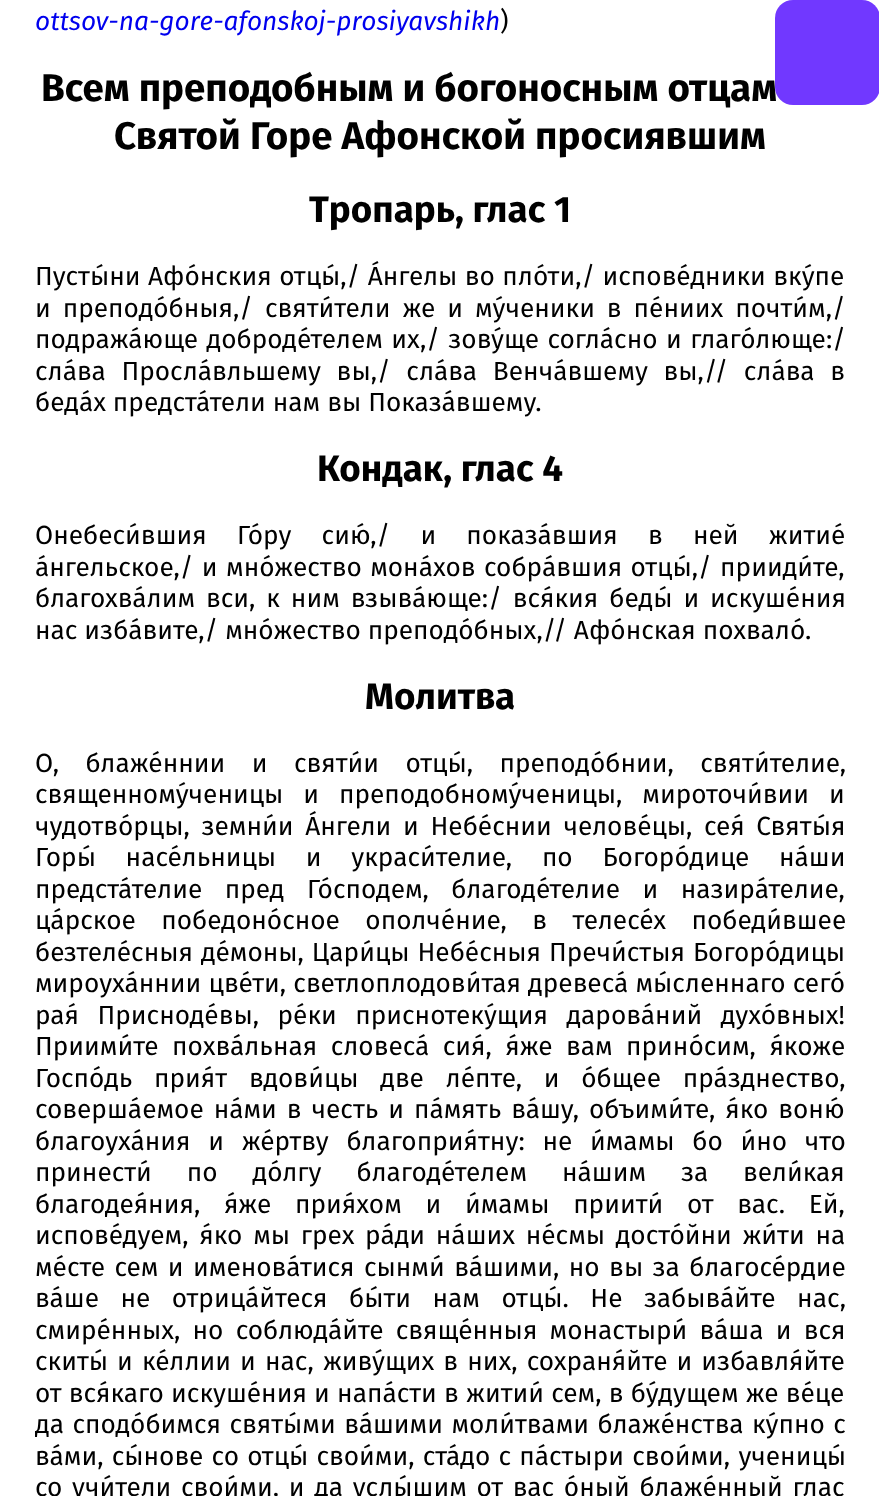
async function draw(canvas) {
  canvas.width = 879;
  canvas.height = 1496;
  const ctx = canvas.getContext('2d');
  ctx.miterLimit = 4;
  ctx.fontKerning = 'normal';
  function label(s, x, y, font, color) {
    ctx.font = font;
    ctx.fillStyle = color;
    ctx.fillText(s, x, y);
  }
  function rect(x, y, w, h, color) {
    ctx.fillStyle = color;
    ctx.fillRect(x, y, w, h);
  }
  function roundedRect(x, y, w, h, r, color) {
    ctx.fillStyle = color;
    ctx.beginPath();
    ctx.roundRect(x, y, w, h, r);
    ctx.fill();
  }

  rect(0, 0, 879, 1496, '#fff');
  label('Всем преподобным и богоносным отцам', 41, 101, 'bold 38.5px Fira Sans', '#000');
  roundedRect(775, 0, 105, 105, 18, '#7138ff');
  label('ottsov-na-gore-afonskoj-prosiyavshikh', 35, 30, 'italic 26.25px Fira Sans', '#00e');
  label(')', 500, 30, '26.25px Fira Sans', '#000');
  label('Святой Горе Афонской просиявшим', 114, 149, 'bold 38.5px Fira Sans', '#000');
  label('Тропарь, глас 1', 309, 222, 'bold 36.75px Fira Sans', '#000');
  ctx.wordSpacing = '0.5px';
  label('Пусты́ни Афо́нския отцы́,/ А́нгелы во пло́ти,/ испове́дники вку́пе', 35, 285, '26.25px Fira Sans', '#000');
  ctx.wordSpacing = '5px';
  label('и преподо́бныя,/ святи́тели же и му́ченики в пе́ниих почти́м,/', 35, 317, '26.25px Fira Sans', '#000');
  ctx.wordSpacing = '1.5px';
  label('подража́юще доброде́телем их,/ зову́ще согла́сно и глаго́люще:/', 35, 348, '26.25px Fira Sans', '#000');
  ctx.wordSpacing = '8.75px';
  label('сла́ва Просла́вльшему вы,/ сла́ва Венча́вшему вы,// сла́ва в', 35, 380, '26.25px Fira Sans', '#000');
  ctx.wordSpacing = '0px';
  label('беда́х предста́тели нам вы Показа́вшему.', 35, 411, '26.25px Fira Sans', '#000');
  label('Кондак, глас 4', 317, 481, 'bold 36.75px Fira Sans', '#000');
  ctx.wordSpacing = '23.25px';
  label('Онебеси́вшия Го́ру сию́,/ и показа́вшия в ней житие́', 35, 544, '26.25px Fira Sans', '#000');
  ctx.wordSpacing = '1.5px';
  label('а́нгельское,/ и мно́жество мона́хов собра́вшия отцы́,/ прииди́те,', 35, 576, '26.25px Fira Sans', '#000');
  ctx.wordSpacing = '4px';
  label('благохва́лим вси, к ним взыва́юще:/ вся́кия беды́ и искуше́ния', 35, 607, '26.25px Fira Sans', '#000');
  ctx.wordSpacing = '0px';
  label('нас изба́вите,/ мно́жество преподо́бных,// Афо́нская похвало́.', 35, 639, '26.25px Fira Sans', '#000');
  label('Молитва', 365, 709, 'bold 36.75px Fira Sans', '#000');
  ctx.wordSpacing = '19.5px';
  label('О, блаже́ннии и святи́и отцы́, преподо́бнии, святи́телие,', 35, 772, '26.25px Fira Sans', '#000');
  ctx.wordSpacing = '13px';
  label('священному́ченицы и преподобному́ченицы, мироточи́вии и', 35, 803, '26.25px Fira Sans', '#000');
  ctx.wordSpacing = '4.75px';
  label('чудотво́рцы, земни́и А́нгели и Небе́снии челове́цы, сея́ Святы́я', 35, 835, '26.25px Fira Sans', '#000');
  ctx.wordSpacing = '22.75px';
  label('Горы́ насе́льницы и украси́телие, по Богоро́дице на́ши', 35, 866, '26.25px Fira Sans', '#000');
  ctx.wordSpacing = '15.5px';
  label('предста́телие пред Го́сподем, благоде́телие и назира́телие,', 35, 898, '26.25px Fira Sans', '#000');
  ctx.wordSpacing = '18.5px';
  label('ца́рское победоно́сное ополче́ние, в телесе́х победи́вшее', 35, 929, '26.25px Fira Sans', '#000');
  ctx.wordSpacing = '1px';
  label('безтеле́сныя де́моны, Цари́цы Небе́сныя Пречи́стыя Богоро́дицы', 35, 961, '26.25px Fira Sans', '#000');
  ctx.wordSpacing = '0.25px';
  label('мироуха́ннии цве́ти, светлоплодови́тая древеса́ мы́сленнаго сего́', 35, 992, '26.25px Fira Sans', '#000');
  ctx.wordSpacing = '11.5px';
  label('рая́ Присноде́вы, ре́ки приснотеку́щия дарова́ний духо́вных!', 35, 1024, '26.25px Fira Sans', '#000');
  ctx.wordSpacing = '6.5px';
  label('Приими́те похва́льная словеса́ сия́, я́же вам прино́сим, я́коже', 35, 1055, '26.25px Fira Sans', '#000');
  ctx.wordSpacing = '14.75px';
  label('Госпо́дь прия́т вдови́цы две ле́пте, и о́бщее пра́зднество,', 35, 1087, '26.25px Fira Sans', '#000');
  ctx.wordSpacing = '3px';
  label('соверша́емое на́ми в честь и па́мять ва́шу, объими́те, я́ко воню́', 35, 1118, '26.25px Fira Sans', '#000');
  ctx.wordSpacing = '10.75px';
  label('благоуха́ния и же́ртву благоприя́тну: не и́мамы бо и́но что', 35, 1150, '26.25px Fira Sans', '#000');
  ctx.wordSpacing = '28px';
  label('принести́ по до́лгу благоде́телем на́шим за вели́кая', 35, 1181, '26.25px Fira Sans', '#000');
  ctx.wordSpacing = '16.75px';
  label('благодея́ния, я́же прия́хом и и́мамы приити́ от вас. Ей,', 35, 1213, '26.25px Fira Sans', '#000');
  ctx.wordSpacing = '3.75px';
  label('испове́дуем, я́ко мы грех ра́ди на́ших не́смы досто́йни жи́ти на', 35, 1244, '26.25px Fira Sans', '#000');
  ctx.wordSpacing = '2.5px';
  label('ме́сте сем и именова́тися сынми́ ва́шими, но вы за благосе́рдие', 35, 1276, '26.25px Fira Sans', '#000');
  ctx.wordSpacing = '14.5px';
  label('ва́ше не отрица́йтеся бы́ти нам отцы́. Не забыва́йте нас,', 35, 1307, '26.25px Fira Sans', '#000');
  ctx.wordSpacing = '5.25px';
  label('смире́нных, но соблюда́йте свяще́нныя монастыри́ ва́ша и вся', 35, 1339, '26.25px Fira Sans', '#000');
  ctx.wordSpacing = '2.1px';
  label('скиты́ и ке́ллии и нас, живу́щих в них, сохраня́йте и избавля́йте', 35, 1370, '26.25px Fira Sans', '#000');
  ctx.wordSpacing = '0.25px';
  label('от вся́каго искуше́ния и напа́сти в житии́ сем, в бу́дущем же ве́це', 35, 1402, '26.25px Fira Sans', '#000');
  ctx.wordSpacing = '1.5px';
  label('да сподо́бимся святы́ми ва́шими моли́твами блаже́нства ку́пно с', 35, 1433, '26.25px Fira Sans', '#000');
  ctx.wordSpacing = '1.25px';
  label('ва́ми, сы́нове со отцы́ свои́ми, ста́до с па́стыри свои́ми, ученицы́', 35, 1465, '26.25px Fira Sans', '#000');
  ctx.wordSpacing = '2.75px';
  label('со учи́тели свои́ми, и да услы́шим от вас о́ный блаже́нный глас', 35, 1496, '26.25px Fira Sans', '#000');
}

draw(document.querySelector('canvas'));
